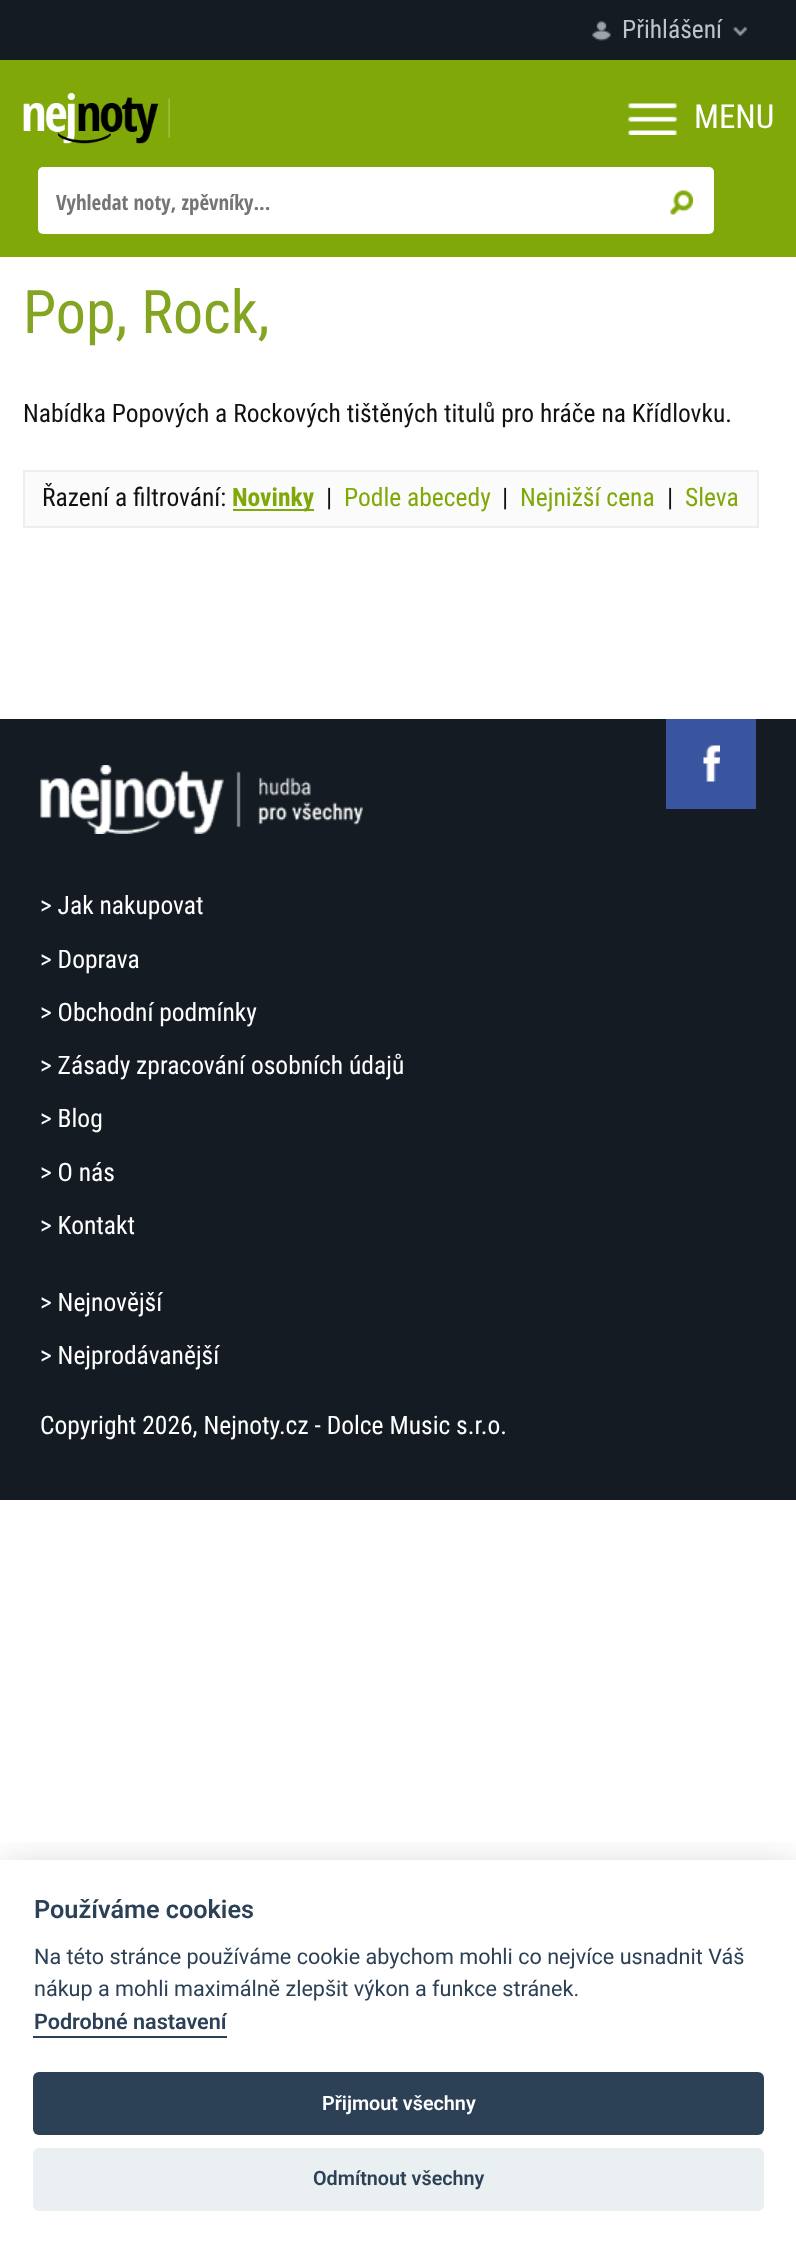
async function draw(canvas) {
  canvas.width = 796;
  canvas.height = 2244;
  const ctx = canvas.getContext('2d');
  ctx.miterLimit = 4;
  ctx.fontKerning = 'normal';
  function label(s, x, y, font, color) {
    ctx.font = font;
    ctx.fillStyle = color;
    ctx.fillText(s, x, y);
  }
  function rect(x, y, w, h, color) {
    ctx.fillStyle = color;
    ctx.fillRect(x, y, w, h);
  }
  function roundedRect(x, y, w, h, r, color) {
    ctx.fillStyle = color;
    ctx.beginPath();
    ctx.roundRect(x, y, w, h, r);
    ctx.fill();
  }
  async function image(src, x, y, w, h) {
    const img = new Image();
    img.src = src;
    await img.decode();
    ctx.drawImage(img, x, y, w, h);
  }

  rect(0, 0, 796, 2244, '#fff');
  rect(0, 0, 796, 60, '#141b23');
  await image('assets/img1.png', 592, 21, 19, 20);
  label('Přihlášení', 622, 38, '25.5px Roboto Condensed', '#bfc2cb');
  await image('assets/img2.png', 733, 27, 14, 9);
  rect(0, 60, 796, 197, '#80a809');
  await image('assets/img3.png', 23, 93, 147, 51);
  await image('assets/img4.png', 628, 103, 49, 32);
  label('MENU', 694, 128, '33px Roboto Condensed', '#fff');
  roundedRect(38, 167, 676, 67, 5, '#fff');
  label('Vyhledat noty, zpěvníky...', 56, 210, 'bold 21px Open Sans Condensed', '#757575');
  await image('assets/img5.png', 670, 190, 23, 25);
  label('Pop, Rock,', 23, 333, '60px Roboto Condensed', '#84a522');
  label('Nabídka Popových a Rockových tištěných titulů pro hráče na Křídlovku.', 23, 422, '25.5px Roboto Condensed', '#111');
  ctx.fillStyle = '#fbfbfb';
  ctx.beginPath();
  ctx.rect(24, 471, 734, 56);
  ctx.fill();
  ctx.strokeStyle = '#eee';
  ctx.lineWidth = 2;
  ctx.stroke();
  label('Řazení a filtrování:', 42, 506, '25.5px Roboto Condensed', '#111');
  rect(233, 509, 81, 2, '#80a808');
  label('Novinky', 232, 506, 'bold 25.5px Roboto Condensed', '#80a808');
  label('|', 326, 506, '25.5px Roboto Condensed', '#111');
  label('Podle abecedy', 344, 506, '25.5px Roboto Condensed', '#80a808');
  label('|', 502, 506, '25.5px Roboto Condensed', '#111');
  label('Nejnižší cena', 520, 506, '25.5px Roboto Condensed', '#80a808');
  label('|', 667, 506, '25.5px Roboto Condensed', '#111');
  label('Sleva', 685, 506, '25.5px Roboto Condensed', '#80a808');
  rect(0, 719, 796, 781, '#141b23');
  await image('assets/img6.png', 40, 765, 323, 69);
  rect(666, 719, 90, 90, '#39559f');
  await image('assets/img7.png', 703, 745, 17, 37);
  label('> Jak nakupovat', 40, 914, '25.5px Roboto Condensed', '#fff');
  label('> Doprava', 40, 968, '25.5px Roboto Condensed', '#fff');
  label('> Obchodní podmínky', 40, 1021, '25.5px Roboto Condensed', '#fff');
  label('> Zásady zpracování osobních údajů', 40, 1074, '25.5px Roboto Condensed', '#fff');
  label('> Blog', 40, 1127, '25.5px Roboto Condensed', '#fff');
  label('> O nás', 40, 1181, '25.5px Roboto Condensed', '#fff');
  label('> Kontakt', 40, 1234, '25.5px Roboto Condensed', '#fff');
  label('> Nejnovější', 40, 1311, '25.5px Roboto Condensed', '#fff');
  label('> Nejprodávanější', 40, 1364, '25.5px Roboto Condensed', '#fff');
  label('Copyright 2026, Nejnoty.cz - Dolce Music s.r.o.', 40, 1434, '25.5px Roboto Condensed', '#fff');
  ctx.save();
  ctx.beginPath();
  ctx.rect(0, 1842, 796, 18);
  ctx.clip();
  ctx.fillStyle = '#02020347';
  ctx.filter = 'blur(22.5px)';
  ctx.beginPath();
  ctx.rect(0, 1875, 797, 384);
  ctx.fill();
  ctx.filter = 'none';
  ctx.restore();
  label('Používáme cookies', 34, 1918, '600 25.25px Roboto', '#2d4156');
  label('Na této stránce používáme cookie abychom mohli co nejvíce usnadnit Váš', 34, 1964, '21.6px Roboto', '#2d4156');
  label('nákup a mohli maximálně zlepšit výkon a funkce stránek.', 34, 1996, '21.6px Roboto', '#2d4156');
  label('Podrobné nastavení', 34, 2029, '600 21.6px Roboto', '#2d4156');
  rect(33, 2036, 194, 2, '#2d4156');
  roundedRect(33, 2072, 731, 63, 6, '#2d4156');
  label('Přijmout všechny', 322, 2110, '600 19.75px Roboto', '#fff');
  roundedRect(33, 2148, 731, 63, 6, '#eaeff2');
  label('Odmítnout všechny', 313, 2185, '600 19.75px Roboto', '#2d4156');
}

draw(document.querySelector('canvas'));
